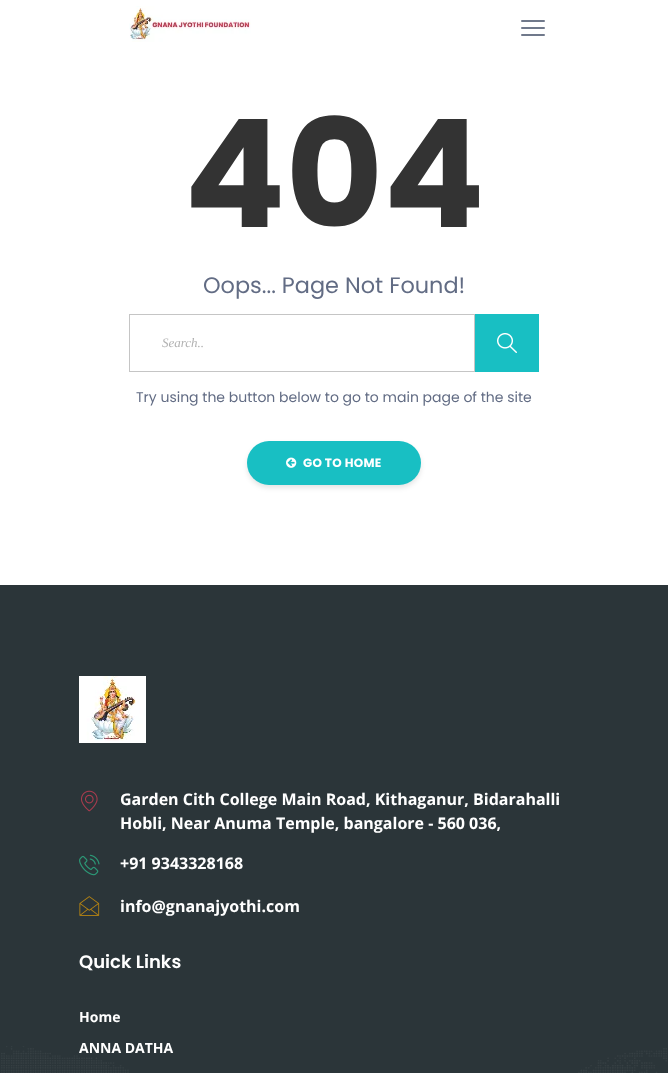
async function draw(canvas) {
  canvas.width = 668;
  canvas.height = 1073;
  const ctx = canvas.getContext('2d');
  ctx.miterLimit = 4;
  ctx.fontKerning = 'normal';
  function label(s, x, y, font, color) {
    ctx.font = font;
    ctx.fillStyle = color;
    ctx.fillText(s, x, y);
  }
  function rect(x, y, w, h, color) {
    ctx.fillStyle = color;
    ctx.fillRect(x, y, w, h);
  }
  function roundedRect(x, y, w, h, r, color) {
    ctx.fillStyle = color;
    ctx.beginPath();
    ctx.roundRect(x, y, w, h, r);
    ctx.fill();
  }
  async function image(src, x, y, w, h) {
    const img = new Image();
    img.src = src;
    await img.decode();
    ctx.drawImage(img, x, y, w, h);
  }

  rect(0, 0, 668, 1073, '#fff');
  await image('assets/img1.png', 129, 6, 122, 36);
  roundedRect(521, 34, 24, 2, 1, '#70798b');
  roundedRect(521, 27, 24, 2, 1, '#70798b');
  roundedRect(521, 20, 24, 2, 1, '#70798b');
  label('404', 184, 227, 'bold 150px Poppins', '#333');
  label('Oops... Page Not Found!', 203, 293, '22.4px Poppins', '#626c84');
  ctx.strokeStyle = '#c5c5c5';
  ctx.strokeRect(129.5, 314.5, 345, 57);
  label('Search..', 162, 347, 'italic 13px Liberation Serif', '#b1b1b1');
  rect(475, 314, 64, 58, '#18bfc3');
  await image('assets/img2.png', 497, 333, 20, 20);
  label('Try using the button below to go to main page of the site', 136, 402, '14px Poppins', '#626c84');
  ctx.fillStyle = '#0000001a';
  ctx.filter = 'blur(2.5px)';
  ctx.beginPath();
  ctx.roundRect(247, 444, 174, 44, 22);
  ctx.fill();
  ctx.filter = 'none';
  roundedRect(247, 441, 174, 44, 22, '#18bfc3');
  await image('assets/img3.png', 286, 457, 11, 11);
  ctx.letterSpacing = '0.25px';
  label('GO TO HOME', 303, 467, 'bold 12px Poppins', '#fff');
  rect(0, 585, 668, 488, '#2b3539');
  await image('assets/img4.png', 1, 1046, 666, 27);
  await image('assets/img5.png', 79, 676, 67, 67);
  await image('assets/img6.png', 81, 790, 17, 22);
  ctx.letterSpacing = '0px';
  label('Garden Cith College Main Road, Kithaganur, Bidarahalli', 120, 805, 'bold 16px Open Sans', '#fff');
  label('Hobli, Near Anuma Temple, bangalore - 560 036,', 120, 829, 'bold 16px Open Sans', '#fff');
  await image('assets/img7.png', 79, 854, 21, 22);
  label('+91 9343328168', 120, 869, 'bold 16px Open Sans', '#fff');
  await image('assets/img8.png', 79, 896, 21, 20);
  label('info@gnanajyothi.com', 120, 912, 'bold 16px Open Sans', '#fff');
  label('Quick Links', 79, 968, '600 18px Poppins', '#fff');
  label('Home', 79, 1022, 'bold 14px Open Sans', '#fff');
  label('ANNA DATHA', 79, 1053, 'bold 14px Open Sans', '#fff');
}

draw(document.querySelector('canvas'));
